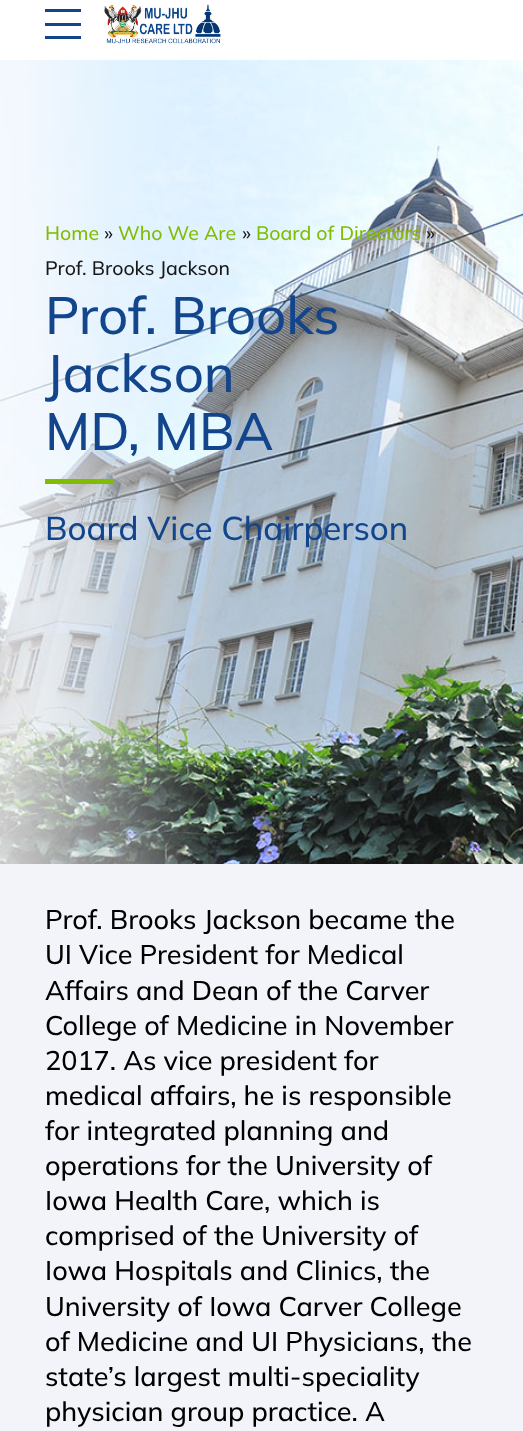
async function draw(canvas) {
  canvas.width = 523;
  canvas.height = 1431;
  const ctx = canvas.getContext('2d');
  ctx.miterLimit = 4;
  ctx.fontKerning = 'normal';
  function label(s, x, y, font, color) {
    ctx.font = font;
    ctx.fillStyle = color;
    ctx.fillText(s, x, y);
  }
  function rect(x, y, w, h, color) {
    ctx.fillStyle = color;
    ctx.fillRect(x, y, w, h);
  }
  async function image(src, x, y, w, h) {
    const img = new Image();
    img.src = src;
    await img.decode();
    ctx.drawImage(img, x, y, w, h);
  }

  rect(0, 0, 523, 1431, '#fff');
  rect(45, 9, 36, 3, '#12458b');
  rect(45, 23, 36, 3, '#12458b');
  rect(45, 36, 36, 3, '#12458b');
  await image('assets/img1.png', 104, 4, 117, 40);
  await image('assets/img2.png', 0, 60, 523, 804);
  label('Home', 45, 240, '500 19.5px Mulish', '#80bd01');
  label('»', 104, 240, '500 19.5px Mulish', '#191919');
  label('Who We Are', 118, 240, '500 19.5px Mulish', '#80bd01');
  label('»', 242, 240, '500 19.5px Mulish', '#191919');
  label('Board of Directors', 256, 240, '500 19.5px Mulish', '#80bd01');
  label('»', 426, 240, '500 19.5px Mulish', '#191919');
  label('Prof. Brooks Jackson', 45, 275, '500 19.5px Mulish', '#191919');
  label('Prof. Brooks', 45, 334, '500 52.5px Mulish', '#12458b');
  label('Jackson', 45, 392, '500 52.5px Mulish', '#12458b');
  label('MD, MBA', 45, 450, '500 52.5px Mulish', '#12458b');
  rect(45, 479, 69, 5, '#80bd01');
  label('Board Vice Chairperson', 45, 540, '500 33px Mulish', '#12458b');
  rect(0, 864, 523, 567, '#f3f4f9');
  label('Prof. Brooks Jackson became the', 45, 929, '500 27px Mulish', '#000');
  label('UI Vice President for Medical', 45, 964, '500 27px Mulish', '#000');
  label('Affairs and Dean of the Carver', 45, 1000, '500 27px Mulish', '#000');
  label('College of Medicine in November', 45, 1035, '500 27px Mulish', '#000');
  label('2017. As vice president for', 45, 1070, '500 27px Mulish', '#000');
  label('medical affairs, he is responsible', 45, 1105, '500 27px Mulish', '#000');
  label('for integrated planning and', 45, 1140, '500 27px Mulish', '#000');
  label('operations for the University of', 45, 1175, '500 27px Mulish', '#000');
  label('Iowa Health Care, which is', 45, 1210, '500 27px Mulish', '#000');
  label('comprised of the University of', 45, 1245, '500 27px Mulish', '#000');
  label('Iowa Hospitals and Clinics, the', 45, 1280, '500 27px Mulish', '#000');
  label('University of Iowa Carver College', 45, 1316, '500 27px Mulish', '#000');
  label('of Medicine and UI Physicians, the', 45, 1351, '500 27px Mulish', '#000');
  label('state’s largest multi-speciality', 45, 1386, '500 27px Mulish', '#000');
  label('physician group practice. A', 45, 1421, '500 27px Mulish', '#000');
}

draw(document.querySelector('canvas'));
